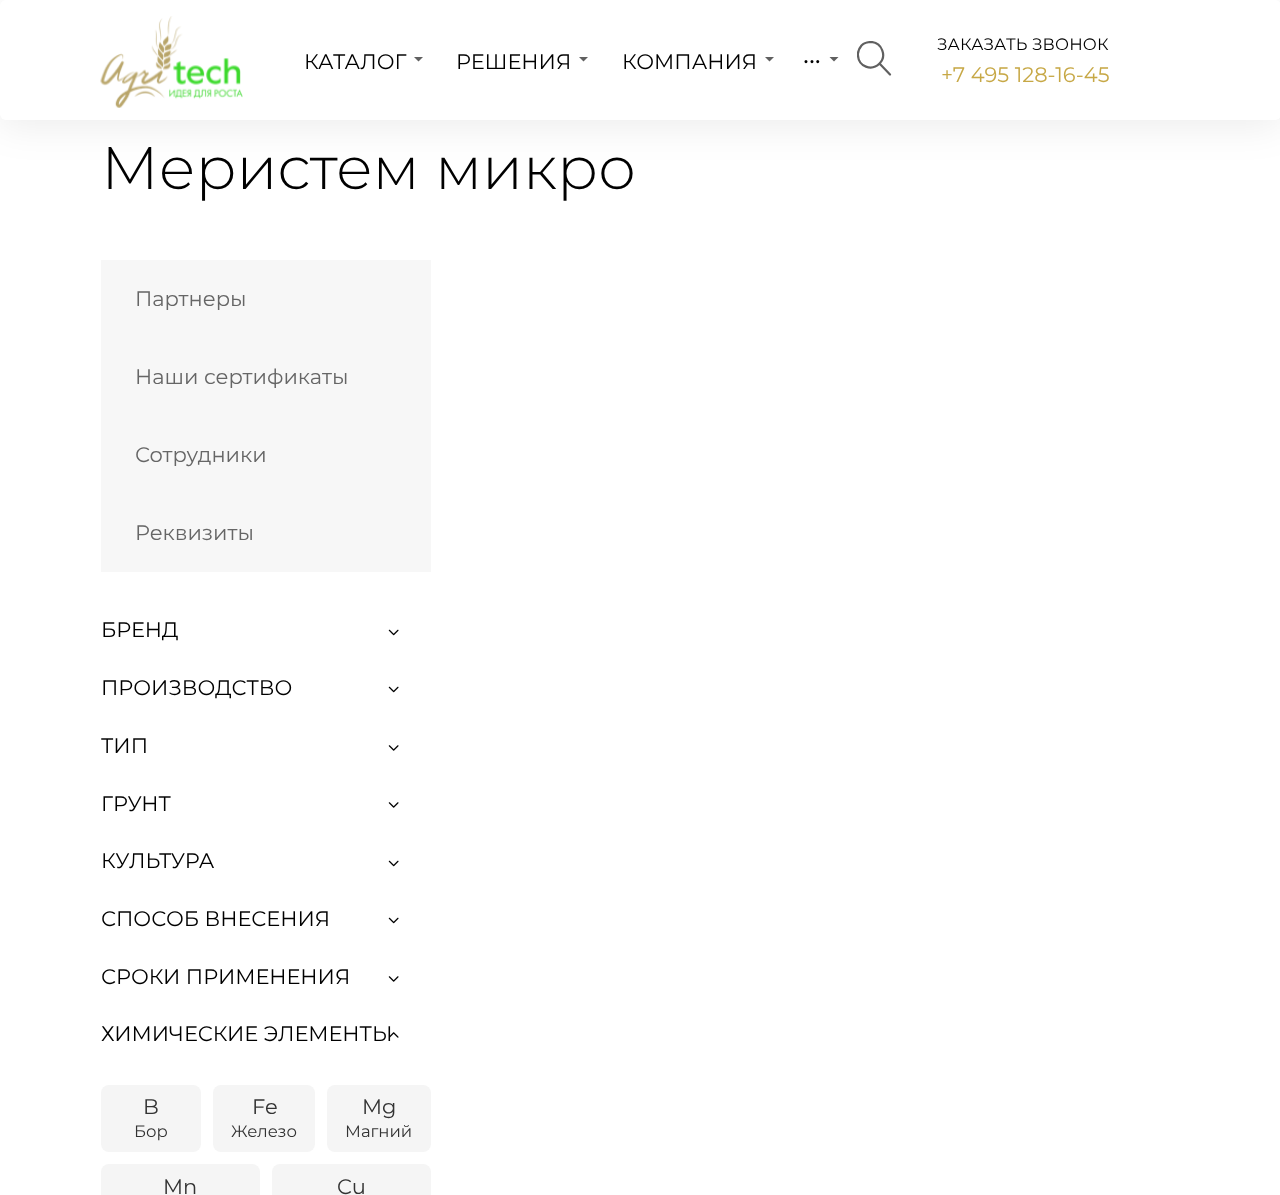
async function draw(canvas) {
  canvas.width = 1280;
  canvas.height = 1195;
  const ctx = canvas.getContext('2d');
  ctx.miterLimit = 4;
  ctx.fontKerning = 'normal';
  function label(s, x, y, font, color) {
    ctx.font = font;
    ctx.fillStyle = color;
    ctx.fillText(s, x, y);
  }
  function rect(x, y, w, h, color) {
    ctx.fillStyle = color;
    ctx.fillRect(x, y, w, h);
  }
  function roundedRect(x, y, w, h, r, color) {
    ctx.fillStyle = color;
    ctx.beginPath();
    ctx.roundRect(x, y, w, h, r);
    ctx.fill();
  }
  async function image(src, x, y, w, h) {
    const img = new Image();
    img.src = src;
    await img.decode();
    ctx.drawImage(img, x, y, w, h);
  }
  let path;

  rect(0, 0, 1280, 1195, '#fff');
  ctx.fillStyle = '#00000014';
  ctx.filter = 'blur(19px)';
  ctx.beginPath();
  ctx.roundRect(0, 5, 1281, 120, 6);
  ctx.fill();
  ctx.filter = 'none';
  roundedRect(0, 0, 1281, 120, 6, '#fff');
  await image('assets/img1.png', 100, 16, 143, 92);
  label('КАТАЛОГ', 304, 69, '21px Montserrat', '#000');
  ctx.fillStyle = '#606060';
  path = new Path2D('M414 57H423L418.5 61.5Z');
  ctx.fill(path);
  label('РЕШЕНИЯ', 456, 69, '21px Montserrat', '#000');
  ctx.fillStyle = '#606060';
  path = new Path2D('M579 57H588L583.5 61.5Z');
  ctx.fill(path);
  label('КОМПАНИЯ', 622, 69, '21px Montserrat', '#000');
  ctx.fillStyle = '#606060';
  path = new Path2D('M765 57H774L769.5 61.5Z');
  ctx.fill(path);
  label('...', 803, 63, '28px Montserrat', '#000');
  ctx.fillStyle = '#606060';
  path = new Path2D('M829.5 57H838.5L834 61.5Z');
  ctx.fill(path);
  ctx.save();
  ctx.beginPath();
  ctx.rect(857, 41, 36, 36);
  ctx.clip();
  path = new Path2D('M889.5 74L890 74.5L879.5 63.5C887 56 882 43 871.5 42C867.5 42 864 43 861.5 45.5C859 48.5 857.5 52 858 55.5C858.5 66.5 871.5 71.5 879.5 63.5');
  ctx.strokeStyle = '#606060';
  ctx.lineWidth = 2.2;
  ctx.lineCap = 'round';
  ctx.lineJoin = 'round';
  ctx.stroke(path);
  ctx.restore();
  ctx.letterSpacing = '0.1px';
  label('ЗАКАЗАТЬ ЗВОНОК', 937, 50, '16.5px Montserrat', '#000');
  ctx.letterSpacing = '0px';
  label('+7 495 128-16-45', 941, 82, '21px Montserrat', '#c7a846');
  label('Меристем микро', 101, 189, '300 60px Montserrat', '#000');
  rect(101, 260, 330, 312, '#f7f7f7');
  label('Партнеры', 135, 306, '21px Montserrat', '#666');
  label('Наши сертификаты', 135, 384, '21px Montserrat', '#666');
  label('Сотрудники', 135, 462, '21px Montserrat', '#666');
  label('Реквизиты', 135, 540, '21px Montserrat', '#666');
  label('БРЕНД', 101, 637, '21px Montserrat', '#000');
  await image('assets/img2.png', 388, 629, 11, 7);
  label('ПРОИЗВОДСТВО', 101, 695, '21px Montserrat', '#000');
  await image('assets/img2.png', 388, 686, 11, 7);
  label('ТИП', 101, 753, '21px Montserrat', '#000');
  await image('assets/img3.png', 388, 745, 11, 6);
  label('ГРУНТ', 101, 811, '21px Montserrat', '#000');
  await image('assets/img3.png', 388, 802, 11, 6);
  label('КУЛЬТУРА', 101, 868, '21px Montserrat', '#000');
  await image('assets/img2.png', 388, 860, 11, 7);
  label('СПОСОБ ВНЕСЕНИЯ', 101, 926, '21px Montserrat', '#000');
  await image('assets/img2.png', 388, 917, 11, 7);
  label('СРОКИ ПРИМЕНЕНИЯ', 101, 984, '21px Montserrat', '#000');
  await image('assets/img3.png', 388, 976, 11, 6);
  label('ХИМИЧЕСКИЕ ЭЛЕМЕНТЫ', 101, 1041, '21px Montserrat', '#000');
  await image('assets/img4.png', 389, 1032, 10, 6);
  roundedRect(101, 1085, 100, 67, 8, '#f5f5f5');
  label('B', 143, 1114, '21px Montserrat', '#333');
  label('Бор', 134, 1137, '16.5px Montserrat', '#333');
  roundedRect(213, 1085, 102, 67, 8, '#f5f5f5');
  label('Fe', 252, 1114, '21px Montserrat', '#333');
  label('Железо', 231, 1137, '16.5px Montserrat', '#333');
  roundedRect(327, 1085, 104, 67, 8, '#f5f5f5');
  label('Mg', 362, 1114, '21px Montserrat', '#333');
  label('Магний', 345, 1137, '16.5px Montserrat', '#333');
  roundedRect(101, 1164, 159, 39, 8, '#f5f5f5');
  label('Mn', 163, 1194, '21px Montserrat', '#333');
  roundedRect(272, 1164, 159, 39, 8, '#f5f5f5');
  label('Cu', 337, 1194, '21px Montserrat', '#333');
}

draw(document.querySelector('canvas'));
